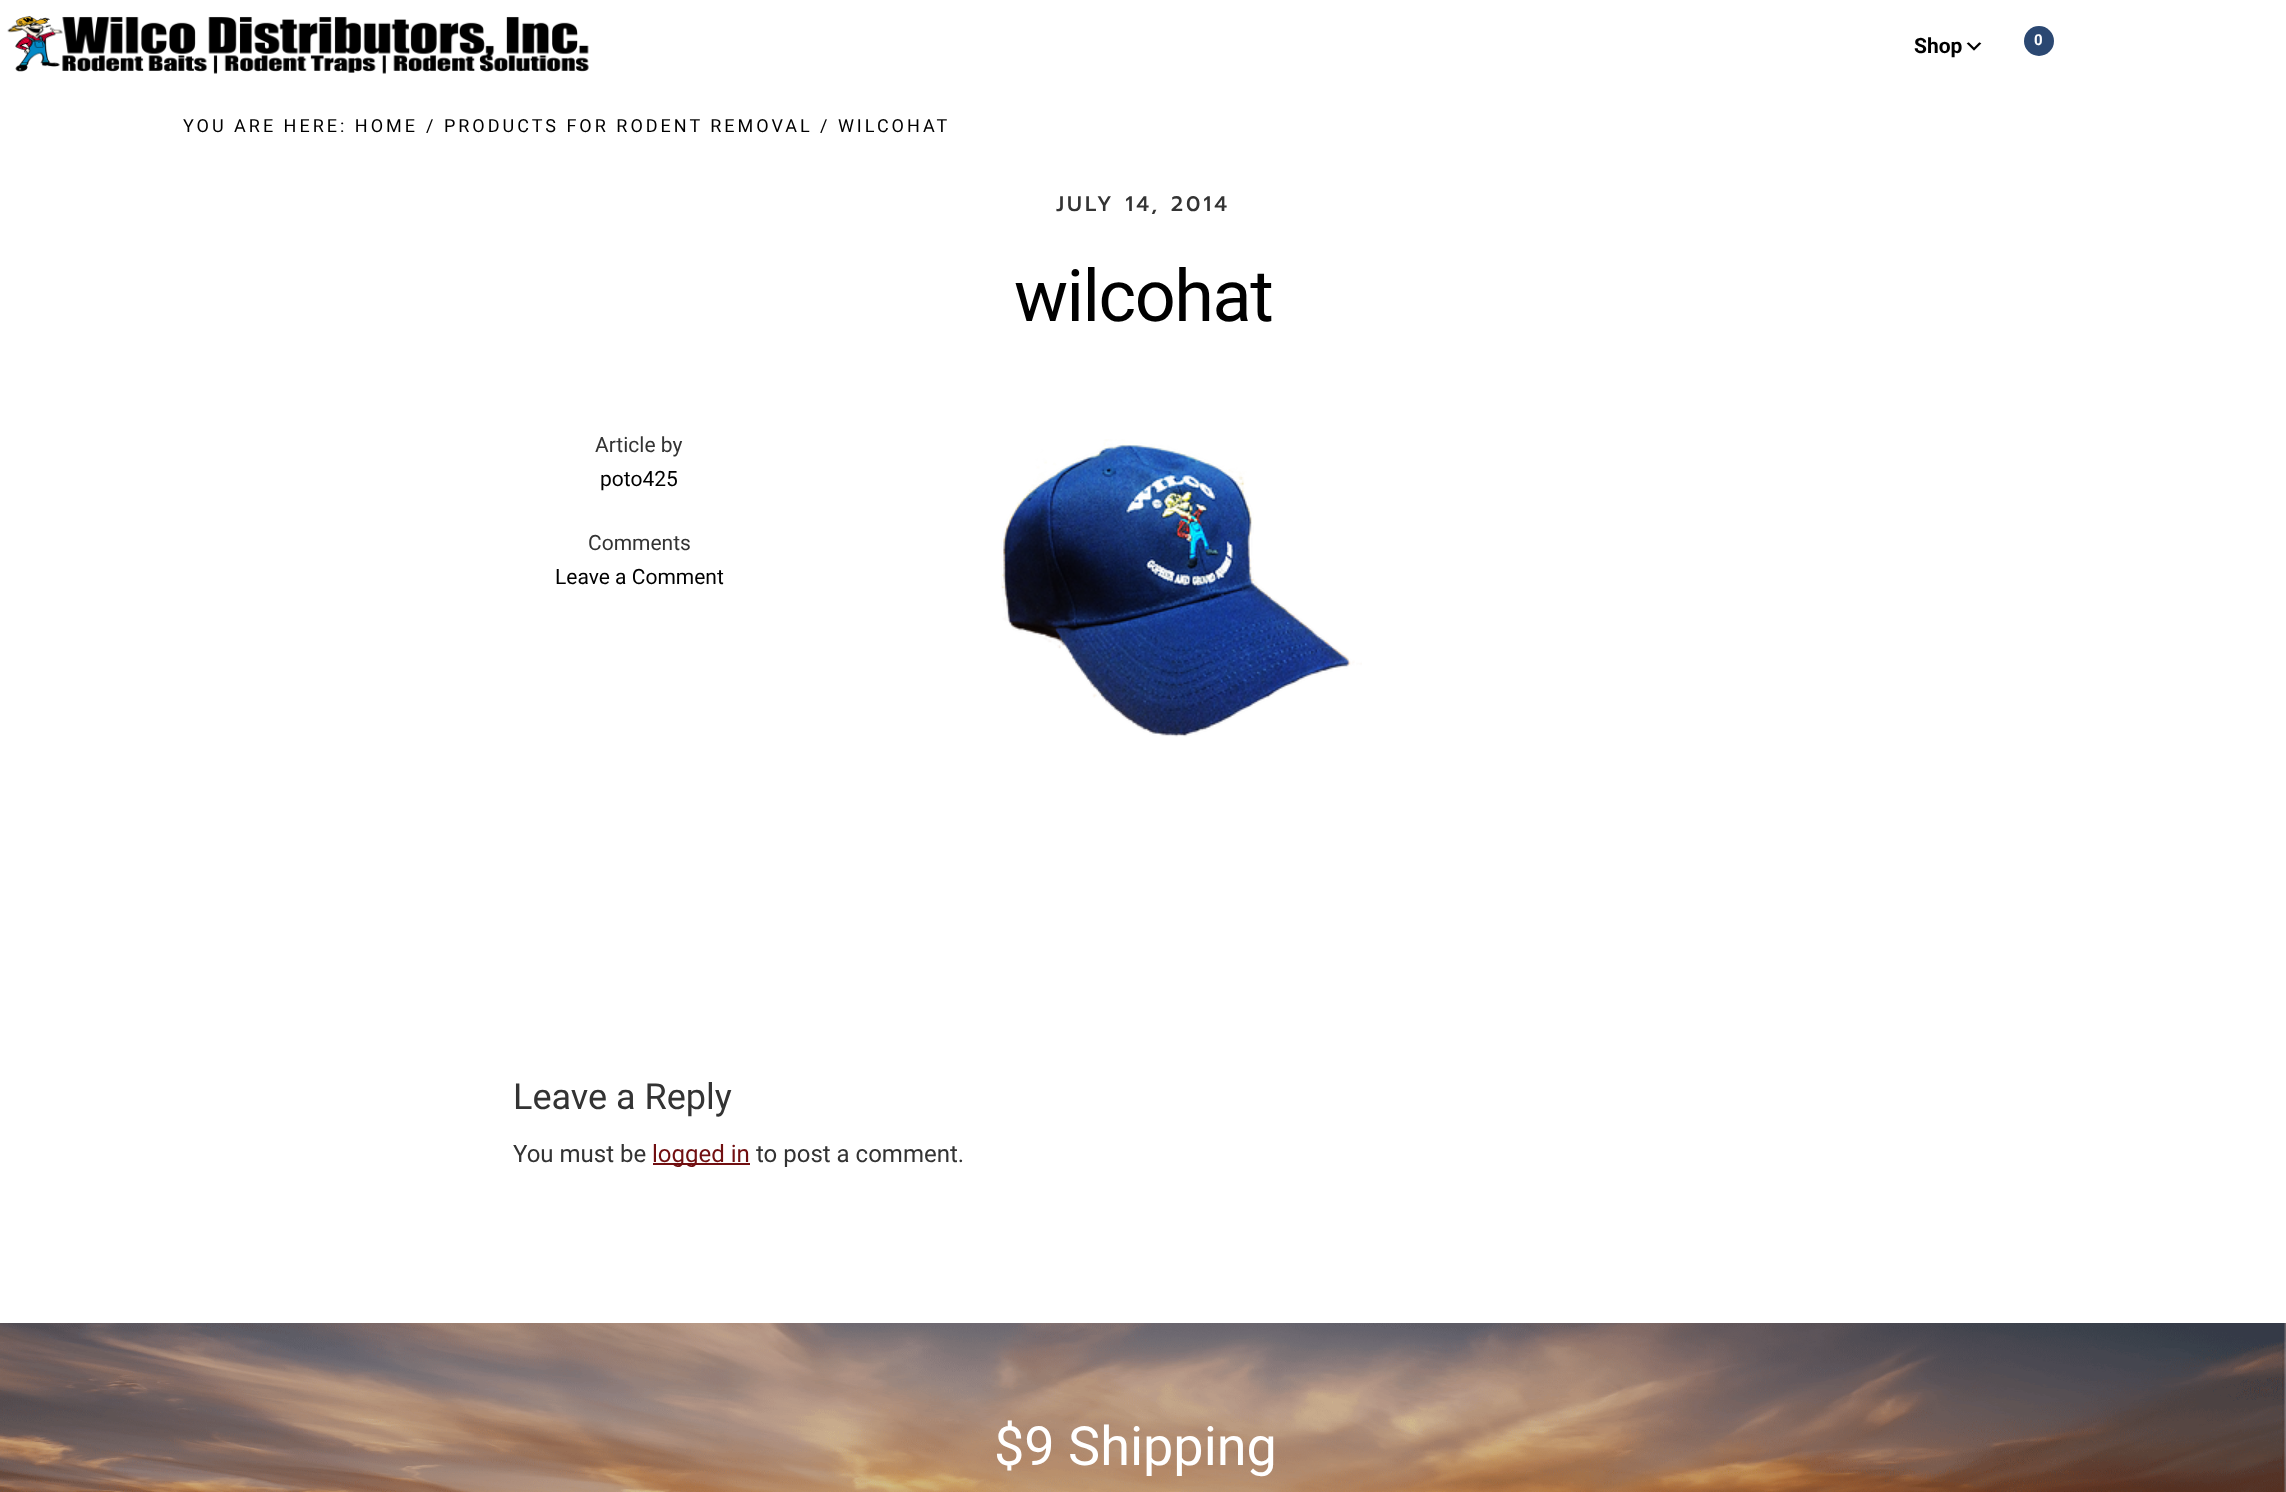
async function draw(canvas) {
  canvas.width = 2286;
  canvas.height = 1492;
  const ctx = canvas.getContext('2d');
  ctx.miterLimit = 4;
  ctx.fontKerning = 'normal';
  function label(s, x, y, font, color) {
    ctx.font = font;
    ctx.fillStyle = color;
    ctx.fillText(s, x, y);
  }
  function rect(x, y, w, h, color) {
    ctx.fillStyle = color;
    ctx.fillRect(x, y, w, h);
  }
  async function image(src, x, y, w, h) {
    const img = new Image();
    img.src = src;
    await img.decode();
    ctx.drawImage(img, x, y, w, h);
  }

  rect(0, 0, 2286, 1492, '#fff');
  await image('assets/img1.png', 7, 16, 582, 58);
  label('Shop', 1914, 53, 'bold 21px Roboto', '#000');
  await image('assets/img2.png', 1966, 42, 16, 9);
  ctx.fillStyle = '#2b4872';
  ctx.beginPath();
  ctx.arc(2039, 41, 15, 0, 2 * Math.PI);
  ctx.fill();
  label('0', 2034, 45, 'bold 15px Roboto', '#fff');
  ctx.letterSpacing = '3px';
  label('YOU ARE HERE: HOME', 183, 132, '18px Roboto', '#000');
  label('/ PRODUCTS FOR RODENT REMOVAL', 426, 132, '18px Roboto', '#000');
  label('/ WILCOHAT', 820, 132, '18px Roboto', '#000');
  label('JULY 14, 2014', 1056, 211, '500 21px Prompt', '#333');
  ctx.letterSpacing = '-1.5px';
  label('wilcohat', 1014, 321, '72px Roboto', '#000');
  ctx.letterSpacing = '0px';
  label('Article by', 595, 452, '21px Roboto', '#333');
  label('poto425', 600, 486, '21px Roboto', '#000');
  label('Comments', 588, 550, '21px Roboto', '#333');
  label('Leave a Comment', 555, 584, '21px Roboto', '#000');
  await image('assets/img3.png', 1001, 439, 361, 298);
  label('Leave a Reply', 513, 1109, '36px Roboto', '#333');
  label('You must be', 513, 1162, '24px Roboto', '#333');
  rect(653, 1163, 97, 2, '#710f11');
  label('logged in', 652, 1162, '24px Roboto', '#710f11');
  label('to post a comment.', 756, 1162, '24px Roboto', '#333');
  await image('assets/img4.png', 0, 1323, 2286, 169);
  label('$9 Shipping', 994, 1465, '54px Roboto', '#fff');
}

draw(document.querySelector('canvas'));
